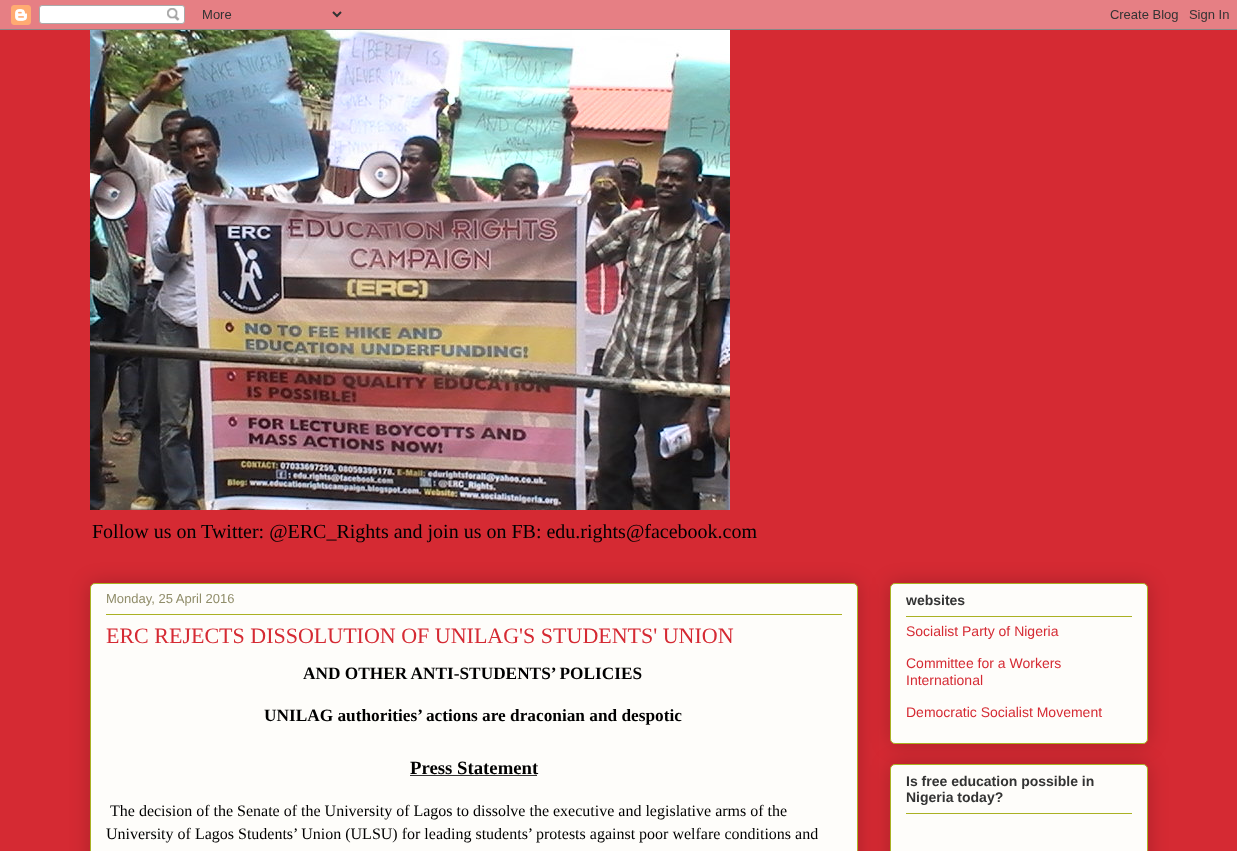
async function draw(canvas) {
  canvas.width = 1237;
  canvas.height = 851;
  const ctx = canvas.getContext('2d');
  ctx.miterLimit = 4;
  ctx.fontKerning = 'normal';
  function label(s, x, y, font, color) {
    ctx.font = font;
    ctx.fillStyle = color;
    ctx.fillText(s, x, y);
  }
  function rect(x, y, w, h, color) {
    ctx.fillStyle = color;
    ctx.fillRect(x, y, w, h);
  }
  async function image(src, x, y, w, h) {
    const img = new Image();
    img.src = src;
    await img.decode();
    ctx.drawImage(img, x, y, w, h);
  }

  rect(0, 0, 1237, 851, '#d52a33');
  await image('assets/img1.png', 0, 0, 1237, 30);
  await image('assets/img2.png', 90, 30, 640, 480);
  label('Follow us on Twitter: @ERC_Rights and join us on FB: edu.rights@facebook.com', 92, 538, '20px Liberation Serif', '#000');
  ctx.fillStyle = '#00000033';
  ctx.filter = 'blur(10px)';
  ctx.beginPath();
  ctx.roundRect(90, 583, 768, 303, 5);
  ctx.fill();
  ctx.filter = 'none';
  ctx.fillStyle = '#fefdfa';
  ctx.beginPath();
  ctx.roundRect(90.5, 583.5, 767, 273, 4.5);
  ctx.fill();
  ctx.strokeStyle = '#aab123';
  ctx.stroke();
  label('Monday, 25 April 2016', 106, 603, '13px Liberation Sans', '#908d6a');
  rect(106, 614, 736, 1, '#aab123');
  label('ERC REJECTS DISSOLUTION OF UNILAG\'S STUDENTS\' UNION', 106, 643, '22px Liberation Serif', '#d52a33');
  label('AND OTHER ANTI-STUDENTS’ POLICIES', 303, 679, 'bold 17.3px Liberation Serif', '#000');
  label('UNILAG authorities’ actions are draconian and despotic', 264, 721, 'bold 17.3px Liberation Serif', '#000');
  label('Press Statement', 410, 774, 'bold 18.75px Liberation Serif', '#000');
  rect(410, 775, 127, 1, '#333');
  label('The decision of the Senate of the University of Lagos to dissolve the executive and legislative arms of the', 110, 816, '16px Liberation Serif', '#000');
  label('University of Lagos Students’ Union (ULSU) for leading students’ protests against poor welfare conditions and', 106, 839, '16px Liberation Serif', '#000');
  ctx.fillStyle = '#00000033';
  ctx.filter = 'blur(10px)';
  ctx.beginPath();
  ctx.roundRect(890, 583, 258, 161, 5);
  ctx.fill();
  ctx.filter = 'none';
  ctx.fillStyle = '#fefdfa';
  ctx.beginPath();
  ctx.roundRect(890.5, 583.5, 257, 160, 4.5);
  ctx.fill();
  ctx.stroke();
  label('websites', 906, 605, 'bold 14px Liberation Sans', '#333');
  rect(906, 616, 226, 1, '#aab123');
  label('Socialist Party of Nigeria', 906, 636, '14px Liberation Sans', '#d52a33');
  label('Committee for a Workers', 906, 668, '14px Liberation Sans', '#d52a33');
  label('International', 906, 685, '14px Liberation Sans', '#d52a33');
  label('Democratic Socialist Movement', 906, 717, '14px Liberation Sans', '#d52a33');
  ctx.fillStyle = '#00000033';
  ctx.filter = 'blur(10px)';
  ctx.beginPath();
  ctx.roundRect(890, 764, 258, 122, 5);
  ctx.fill();
  ctx.filter = 'none';
  ctx.fillStyle = '#fefdfa';
  ctx.beginPath();
  ctx.roundRect(890.5, 764.5, 257, 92, 4.5);
  ctx.fill();
  ctx.stroke();
  label('Is free education possible in', 906, 786, 'bold 14px Liberation Sans', '#333');
  label('Nigeria today?', 906, 802, 'bold 14px Liberation Sans', '#333');
  rect(906, 813, 226, 1, '#aab123');
}

draw(document.querySelector('canvas'));
